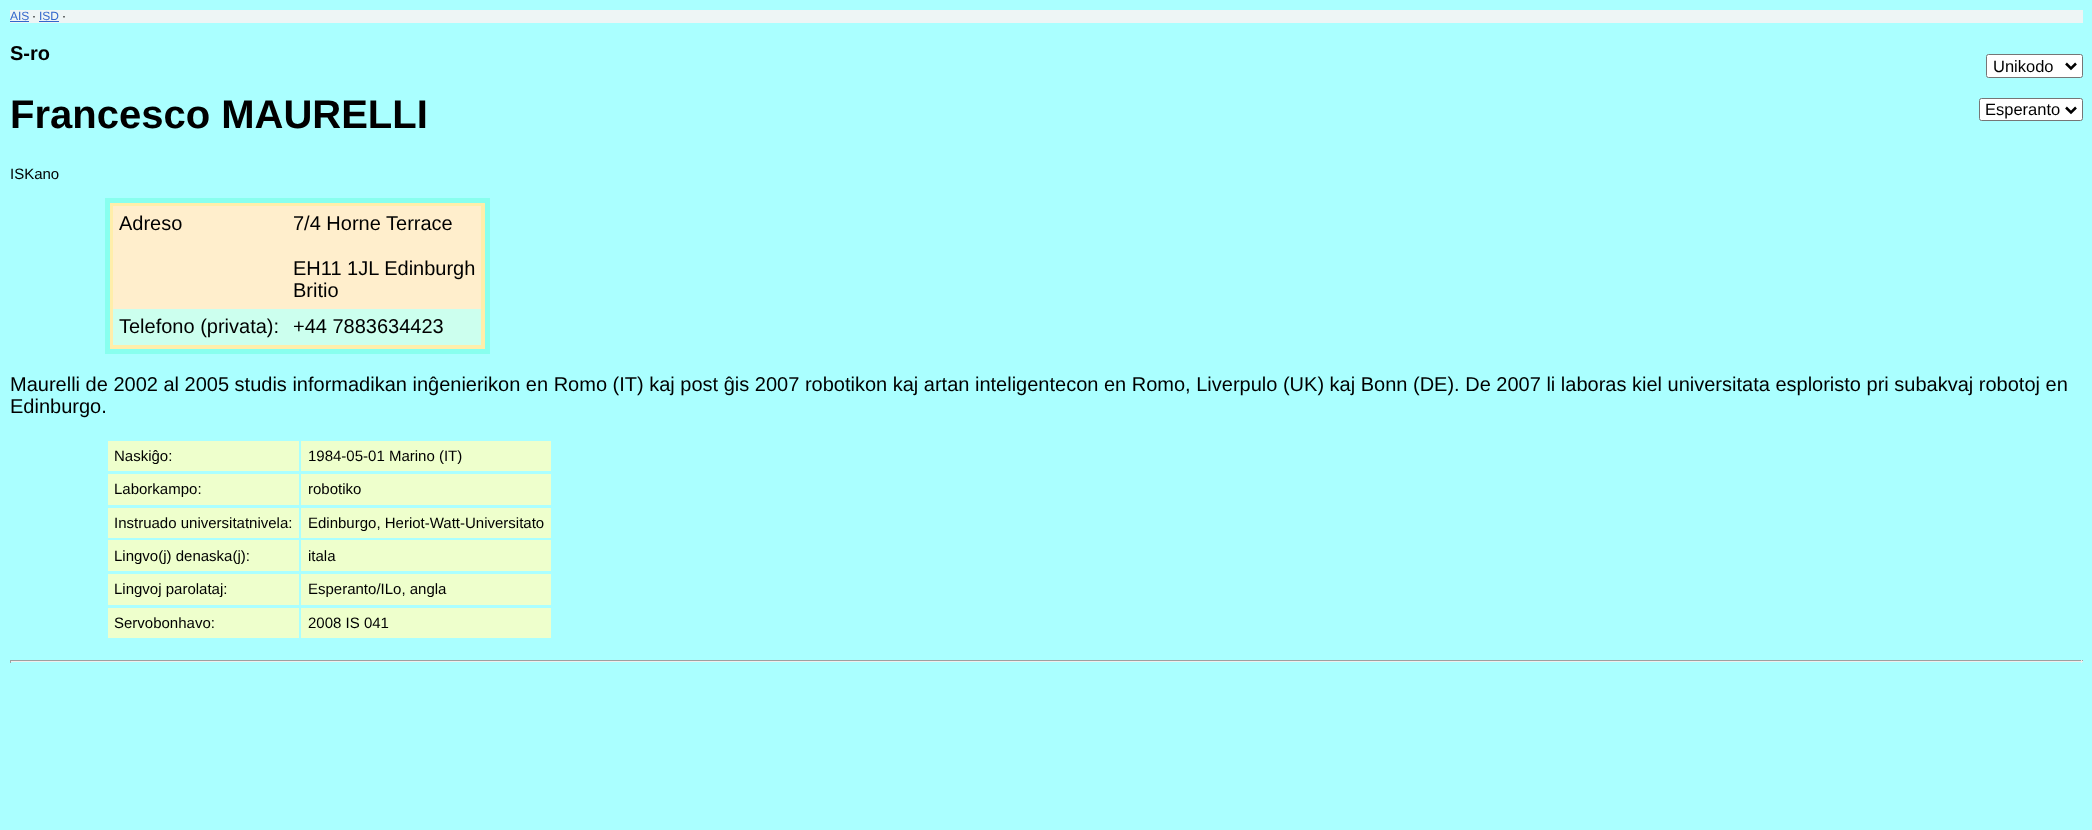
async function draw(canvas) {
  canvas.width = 2092;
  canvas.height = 830;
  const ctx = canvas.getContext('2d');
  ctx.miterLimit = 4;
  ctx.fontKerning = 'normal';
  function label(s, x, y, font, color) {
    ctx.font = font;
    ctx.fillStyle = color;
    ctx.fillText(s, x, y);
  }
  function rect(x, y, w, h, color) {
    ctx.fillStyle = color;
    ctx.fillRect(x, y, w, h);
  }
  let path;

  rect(0, 0, 2092, 830, '#aff');
  rect(10, 10, 2073, 13, '#eef5f5');
  label('AIS', 10, 20, '12px Liberation Sans', '#36c');
  rect(10, 21, 19, 1, '#36c');
  label('·', 32, 20, '12px Liberation Sans', '#000');
  label('ISD', 39, 20, '12px Liberation Sans', '#36c');
  rect(39, 21, 20, 1, '#36c');
  label('·', 62, 20, '12px Liberation Sans', '#000');
  label('S-ro', 10, 60, 'bold 20px Liberation Sans', '#000');
  label('Francesco MAURELLI', 10, 128, 'bold 40px Liberation Sans', '#000');
  ctx.fillStyle = '#fff';
  ctx.beginPath();
  ctx.roundRect(1986.5, 54.5, 96, 23, 2);
  ctx.fill();
  ctx.strokeStyle = '#767676';
  ctx.stroke();
  path = new Path2D('M2066 63.5L2071 68.5L2076 63.5');
  ctx.strokeStyle = '#000';
  ctx.lineWidth = 2.5;
  ctx.stroke(path);
  label('Unikodo', 1993, 72, '16.5px Liberation Sans', '#000');
  ctx.fillStyle = '#fff';
  ctx.beginPath();
  ctx.roundRect(1979.5, 98.5, 103, 22, 2);
  ctx.fill();
  ctx.strokeStyle = '#767676';
  ctx.lineWidth = 1;
  ctx.stroke();
  path = new Path2D('M2066 107.5L2071 112.5L2076 107.5');
  ctx.strokeStyle = '#000';
  ctx.lineWidth = 2.5;
  ctx.stroke(path);
  label('Esperanto', 1985, 115, '16.5px Liberation Sans', '#000');
  label('ISKano', 10, 179, '15px Liberation Sans', '#000');
  ctx.fillStyle = '#fea';
  ctx.beginPath();
  ctx.rect(107.5, 200.5, 380, 151);
  ctx.fill();
  ctx.strokeStyle = '#8fe';
  ctx.lineWidth = 5;
  ctx.stroke();
  rect(113, 206, 368, 103, '#fec');
  label('Adreso', 119, 230, '20px Liberation Sans', '#000');
  label('7/4 Horne Terrace', 293, 230, '20px Liberation Sans', '#000');
  label('EH11 1JL Edinburgh', 293, 275, '20px Liberation Sans', '#000');
  label('Britio', 293, 297, '20px Liberation Sans', '#000');
  rect(113, 309, 368, 36, '#cfe');
  label('Telefono (privata):', 119, 333, '20px Liberation Sans', '#000');
  label('+44 7883634423', 293, 333, '20px Liberation Sans', '#000');
  label('Maurelli de 2002 al 2005 studis informadikan inĝenierikon en Romo (IT) kaj post ĝis 2007 robotikon kaj artan inteligentecon en Romo, Liverpulo (UK) kaj Bonn (DE). De 2007 li laboras kiel universitata esploristo pri subakvaj robotoj en', 10, 391, '20px Liberation Sans', '#000');
  label('Edinburgo.', 10, 413, '20px Liberation Sans', '#000');
  rect(108, 441, 191, 30, '#efc');
  label('Naskiĝo:', 114, 461, '15px Liberation Sans', '#000');
  rect(301, 441, 250, 30, '#efc');
  label('1984-05-01 Marino (IT)', 308, 461, '15px Liberation Sans', '#000');
  rect(108, 474, 191, 31, '#efc');
  label('Laborkampo:', 114, 494, '15px Liberation Sans', '#000');
  rect(301, 474, 250, 31, '#efc');
  label('robotiko', 308, 494, '15px Liberation Sans', '#000');
  rect(108, 508, 191, 30, '#efc');
  label('Instruado universitatnivela:', 114, 528, '15px Liberation Sans', '#000');
  rect(301, 508, 250, 30, '#efc');
  label('Edinburgo, Heriot-Watt-Universitato', 308, 528, '15px Liberation Sans', '#000');
  rect(108, 540, 191, 31, '#efc');
  label('Lingvo(j) denaska(j):', 114, 561, '15px Liberation Sans', '#000');
  rect(301, 540, 250, 31, '#efc');
  label('itala', 308, 561, '15px Liberation Sans', '#000');
  rect(108, 574, 191, 31, '#efc');
  label('Lingvoj parolataj:', 114, 594, '15px Liberation Sans', '#000');
  rect(301, 574, 250, 31, '#efc');
  label('Esperanto/ILo, angla', 308, 594, '15px Liberation Sans', '#000');
  rect(108, 608, 191, 30, '#efc');
  label('Servobonhavo:', 114, 628, '15px Liberation Sans', '#000');
  rect(301, 608, 250, 30, '#efc');
  label('2008 IS 041', 308, 628, '15px Liberation Sans', '#000');
  rect(10, 660, 2073, 1, '#9f9f9f');
  rect(2081, 660, 1, 3, '#eee');
  rect(10, 661, 2073, 1, '#eee');
  rect(10, 660, 1, 3, '#9f9f9f');
}

draw(document.querySelector('canvas'));
